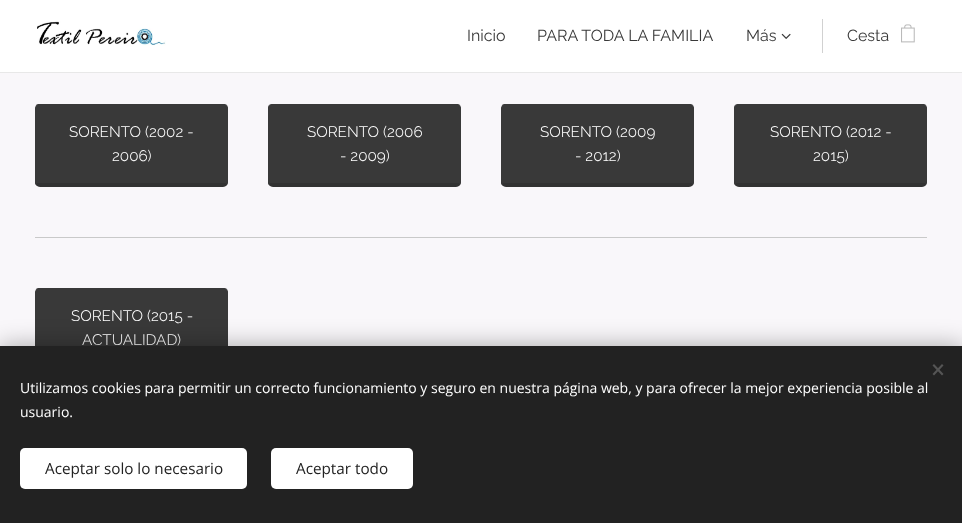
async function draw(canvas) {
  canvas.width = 962;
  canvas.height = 523;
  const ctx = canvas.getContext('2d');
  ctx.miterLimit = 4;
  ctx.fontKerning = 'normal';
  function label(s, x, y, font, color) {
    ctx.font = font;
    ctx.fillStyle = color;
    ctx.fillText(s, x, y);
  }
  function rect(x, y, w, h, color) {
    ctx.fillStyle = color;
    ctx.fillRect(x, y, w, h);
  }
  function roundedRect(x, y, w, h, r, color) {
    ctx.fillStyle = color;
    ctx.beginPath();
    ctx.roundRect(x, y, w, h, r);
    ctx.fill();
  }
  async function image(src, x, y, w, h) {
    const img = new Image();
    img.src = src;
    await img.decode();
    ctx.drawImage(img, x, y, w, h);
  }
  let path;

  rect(0, 0, 962, 523, '#f9f7fa');
  rect(0, 0, 962, 72, '#fff');
  rect(0, 72, 962, 1, '#e8e8e8');
  await image('assets/img1.png', 37, 21, 129, 25);
  label('Inicio', 467, 41, '16px Raleway', '#393939');
  label('PARA TODA LA FAMILIA', 537, 41, '16px Raleway', '#393939');
  label('Más', 746, 41, '16px Raleway', '#393939');
  await image('assets/img2.png', 781, 33, 10, 6);
  rect(822, 19, 1, 34, '#d1d1d1');
  label('Cesta', 847, 41, '16px Raleway', '#393939');
  await image('assets/img3.png', 901, 24, 14, 19);
  roundedRect(35, 104, 193, 83, 5, '#393939');
  path = new Path2D('M40 104C38 104 37 104 36 105L38 107L40 106H223L225 107L227 105C226 104 224 104 223 104Z');
  ctx.fill(path);
  path = new Path2D('M228 182V108L227 105L225 107L226 109V183L227 185Z');
  ctx.fill(path);
  ctx.fillStyle = '#0000001f';
  path = new Path2D('M40 187H223C225 187 226 186 227 185L226 183H162H40H37L36 185C37 186 38 187 40 187Z');
  ctx.fill(path);
  ctx.fillStyle = '#393939';
  path = new Path2D('M35 109V182C35 183 35 184 36 185L37 183V109L38 107L36 105C36 106 35 108 35 109Z');
  ctx.fill(path);
  label('SORENTO (2002 -', 69, 137, '300 15.25px Raleway', '#fff');
  label('2006)', 112, 161, '300 15.25px Raleway', '#fff');
  roundedRect(268, 104, 193, 83, 5, '#393939');
  path = new Path2D('M273 104C272 104 270 104 269 105L271 107L273 106H456L458 107L460 105C459 104 458 104 456 104Z');
  ctx.fill(path);
  path = new Path2D('M461 182V108L460 105L458 107L459 109V183L460 185Z');
  ctx.fill(path);
  ctx.fillStyle = '#0000001f';
  path = new Path2D('M273 187H456C458 187 459 186 460 185L459 183H456H271H270L269 185C270 186 271 187 273 187Z');
  ctx.fill(path);
  ctx.fillStyle = '#393939';
  path = new Path2D('M268 109V182C268 183 268 184 269 185L270 183V109L271 107L269 105C268 106 268 108 268 109Z');
  ctx.fill(path);
  label('SORENTO (2006', 307, 137, '300 15.25px Raleway', '#fff');
  label('- 2009)', 340, 161, '300 15.25px Raleway', '#fff');
  roundedRect(501, 104, 193, 83, 5, '#393939');
  path = new Path2D('M506 104C504 104 503 104 502 105L504 107L506 106H689L691 107L693 105C692 104 690 104 689 104Z');
  ctx.fill(path);
  path = new Path2D('M694 182V108L693 105L691 107L692 109V183L693 185Z');
  ctx.fill(path);
  ctx.fillStyle = '#0000001f';
  path = new Path2D('M506 187H689C691 187 692 186 693 185L692 183H628H506H503L502 185C503 186 504 187 506 187Z');
  ctx.fill(path);
  ctx.fillStyle = '#393939';
  path = new Path2D('M501 109V182C501 183 501 184 502 185L503 183V109L504 107L502 105C502 106 501 108 501 109Z');
  ctx.fill(path);
  label('SORENTO (2009', 540, 137, '300 15.25px Raleway', '#fff');
  label('- 2012)', 575, 161, '300 15.25px Raleway', '#fff');
  roundedRect(734, 104, 193, 83, 5, '#393939');
  path = new Path2D('M739 104C738 104 736 104 735 105L737 107L739 106H922L924 107L926 105C925 104 924 104 922 104Z');
  ctx.fill(path);
  path = new Path2D('M927 182V108L926 105L924 107L925 109V183L926 185Z');
  ctx.fill(path);
  ctx.fillStyle = '#0000001f';
  path = new Path2D('M739 187H922C924 187 925 186 926 185L925 183H861H739H736L735 185C736 186 737 187 739 187Z');
  ctx.fill(path);
  ctx.fillStyle = '#393939';
  path = new Path2D('M734 109V182C734 183 734 184 735 185L736 183V109L737 107L735 105C734 106 734 108 734 109Z');
  ctx.fill(path);
  label('SORENTO (2012 -', 770, 137, '300 15.25px Raleway', '#fff');
  label('2015)', 813, 161, '300 15.25px Raleway', '#fff');
  rect(35, 237, 892, 1, '#c9c9c9');
  roundedRect(35, 288, 193, 82, 5, '#393939');
  path = new Path2D('M40 288C38 288 37 288 36 289L38 291L40 290H223L225 291L227 289C226 288 224 288 223 288Z');
  ctx.fill(path);
  path = new Path2D('M228 365V292L227 289L225 291L226 293V366L227 368Z');
  ctx.fill(path);
  path = new Path2D('M35 293V365C35 366 35 367 36 368L37 366V293L38 291L36 289C36 290 35 292 35 293Z');
  ctx.fill(path);
  label('SORENTO (2015 -', 71, 321, '300 15.25px Raleway', '#fff');
  label('ACTUALIDAD)', 82, 345, '300 15.25px Raleway', '#fff');
  ctx.fillStyle = '#00000054';
  ctx.filter = 'blur(12.5px)';
  ctx.beginPath();
  ctx.rect(0, 346, 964, 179);
  ctx.fill();
  ctx.filter = 'none';
  rect(0, 346, 962, 177, '#222');
  ctx.fillStyle = '#555';
  path = new Path2D('M932.5 374L942 364L943.5 365.5L934 375.5Z');
  ctx.fill(path);
  path = new Path2D('M934 364L943.5 374L942 375.5L932.5 365.5Z');
  ctx.fill(path);
  label('Utilizamos cookies para permitir un correcto funcionamiento y seguro en nuestra página web, y para ofrecer la mejor experiencia posible al', 20, 393, '14px Open Sans', '#fff');
  label('usuario.', 20, 417, '14px Open Sans', '#fff');
  roundedRect(20, 448, 227, 41, 5, '#fff');
  label('Aceptar solo lo necesario', 45, 474, '15.25px Open Sans', '#222');
  roundedRect(271, 448, 142, 41, 5, '#fff');
  label('Aceptar todo', 296, 474, '15.25px Open Sans', '#222');
}

draw(document.querySelector('canvas'));
